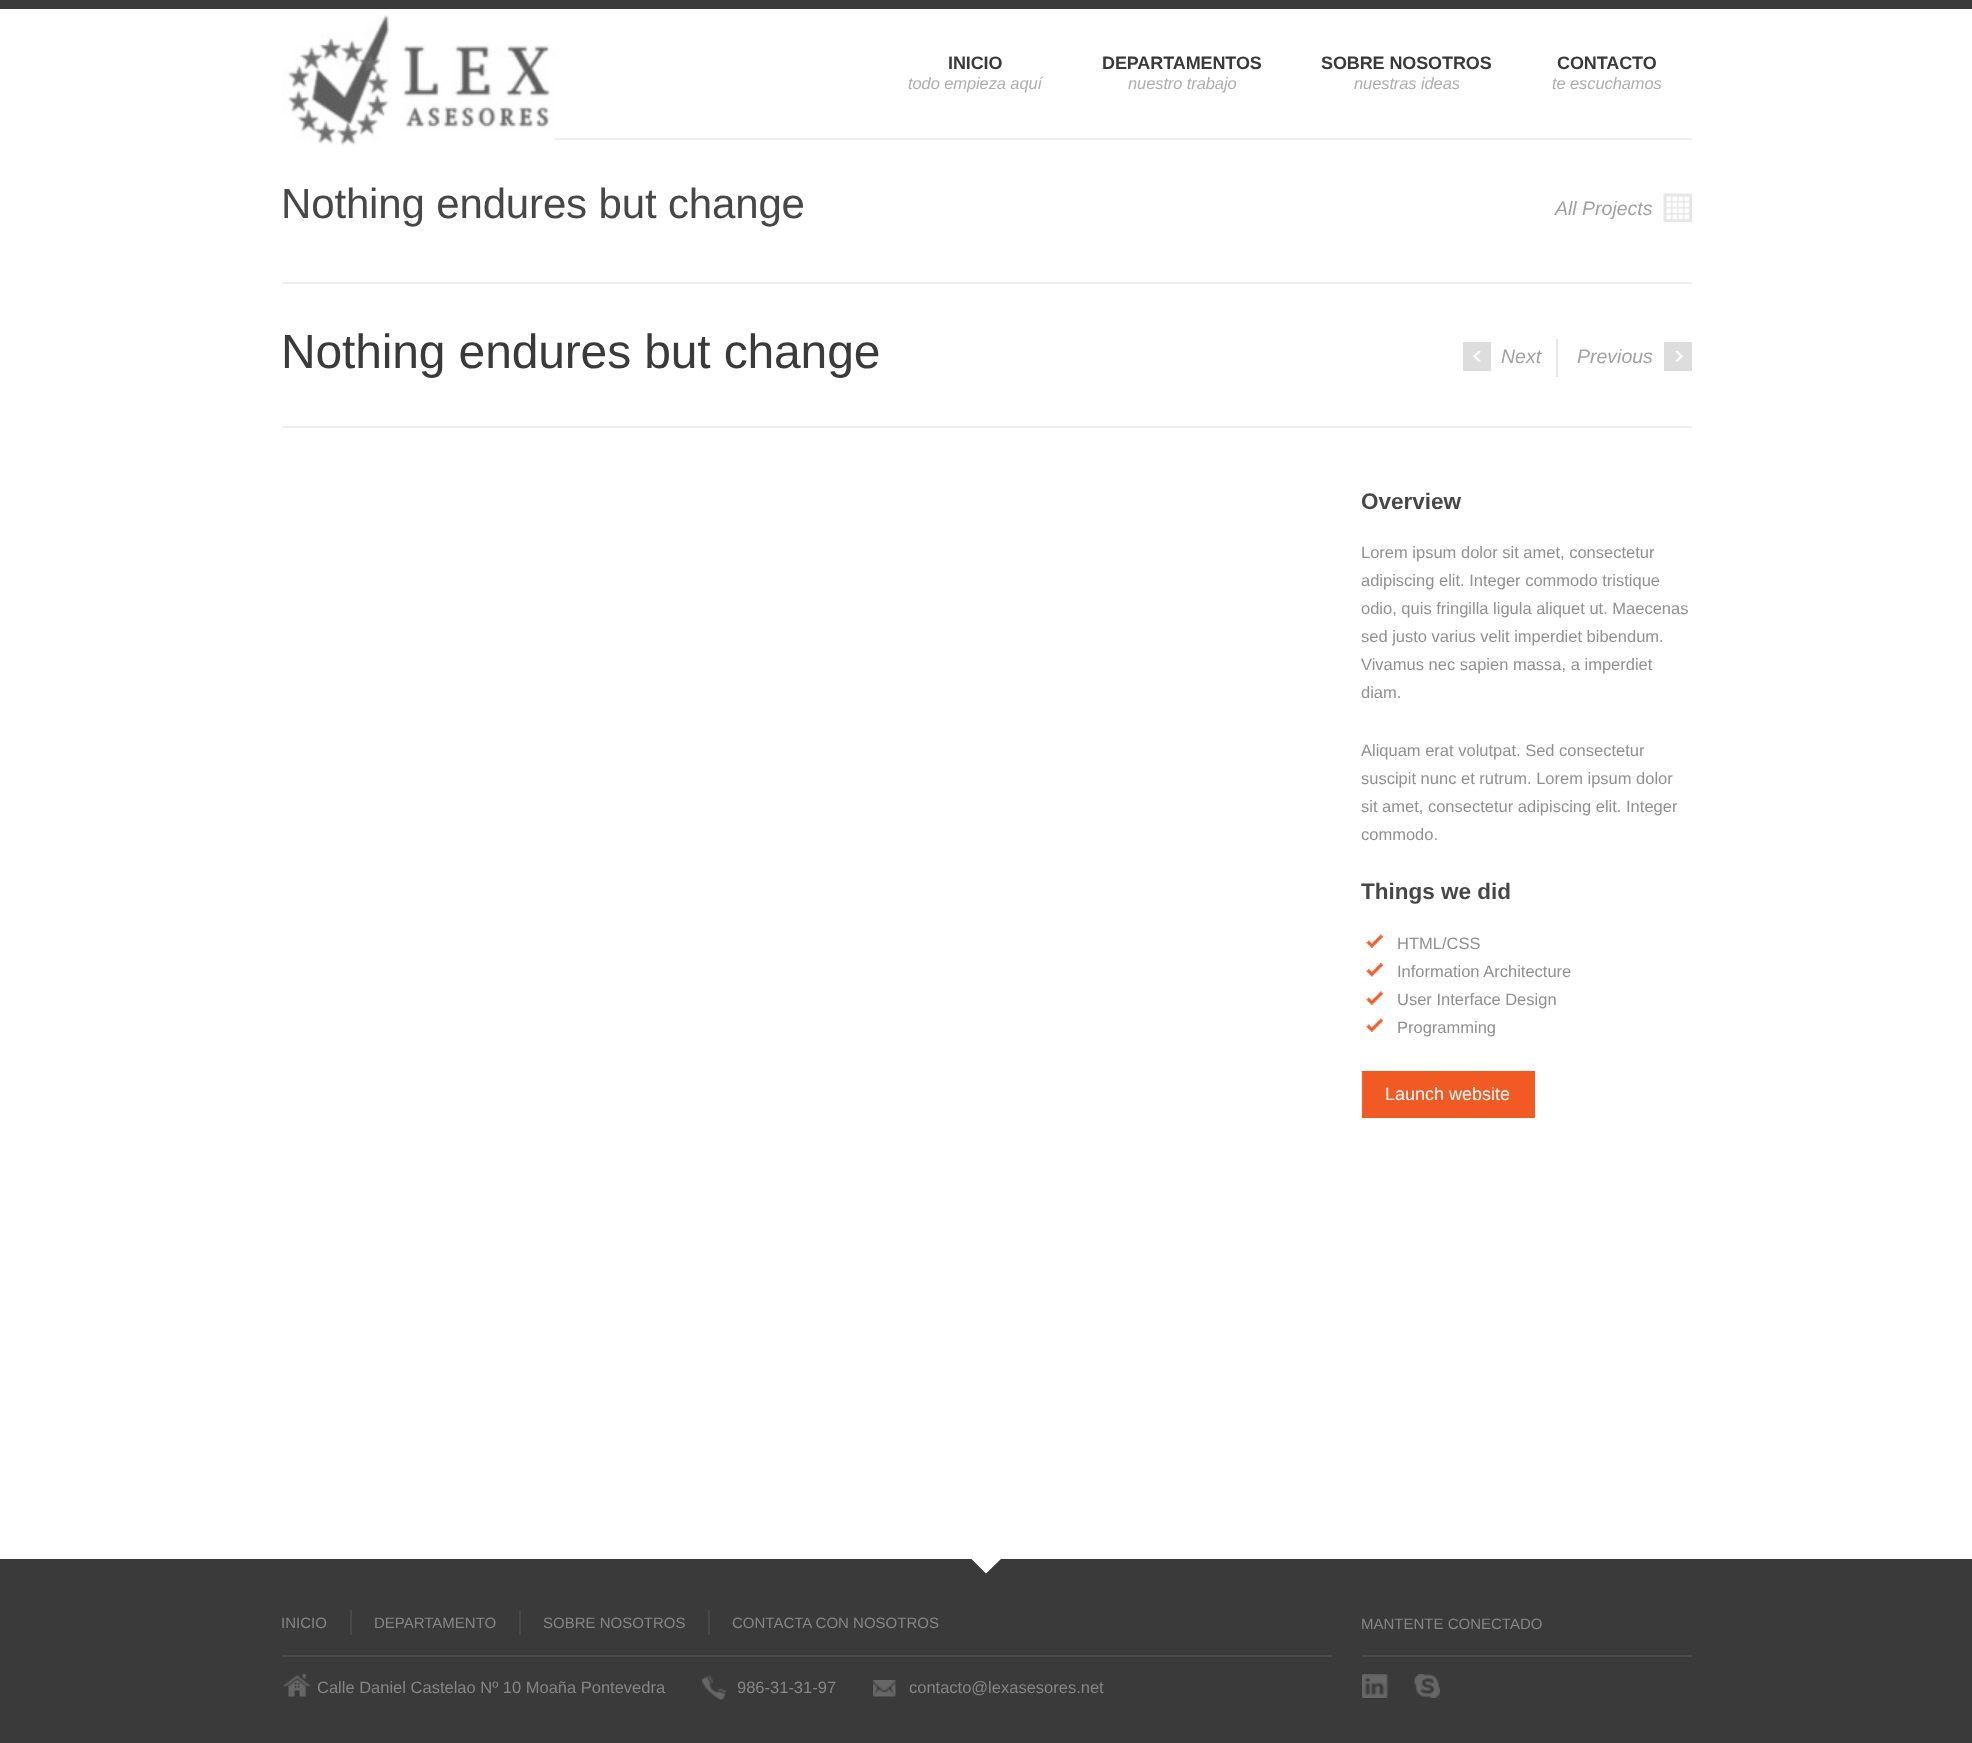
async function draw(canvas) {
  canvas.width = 1972;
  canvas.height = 1743;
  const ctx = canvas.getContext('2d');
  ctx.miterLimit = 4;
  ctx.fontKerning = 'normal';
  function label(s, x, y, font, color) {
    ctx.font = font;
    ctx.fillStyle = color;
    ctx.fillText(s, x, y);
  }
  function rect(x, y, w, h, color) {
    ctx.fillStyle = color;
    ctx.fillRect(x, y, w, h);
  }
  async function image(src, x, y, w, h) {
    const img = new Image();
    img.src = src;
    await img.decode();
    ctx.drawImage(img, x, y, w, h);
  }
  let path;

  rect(0, 0, 1972, 1743, '#fff');
  rect(0, 0, 1972, 9, '#3a3a3a');
  rect(555, 138, 1137, 2, '#efefef');
  await image('assets/img1.png', 282, 15, 273, 131);
  ctx.letterSpacing = '-0.1px';
  label('INICIO', 948, 69, 'bold 18px Liberation Sans', '#3a3a3a');
  label('todo empieza aquí', 908, 89, 'italic 16.5px Liberation Sans', '#aeaeae');
  label('DEPARTAMENTOS', 1102, 69, 'bold 18px Liberation Sans', '#3a3a3a');
  label('nuestro trabajo', 1128, 89, 'italic 16.5px Liberation Sans', '#aeaeae');
  label('SOBRE NOSOTROS', 1321, 69, 'bold 18px Liberation Sans', '#3a3a3a');
  label('nuestras ideas', 1354, 89, 'italic 16.5px Liberation Sans', '#aeaeae');
  label('CONTACTO', 1557, 69, 'bold 18px Liberation Sans', '#3a3a3a');
  label('te escuchamos', 1552, 89, 'italic 16.5px Liberation Sans', '#aeaeae');
  rect(282, 426, 1410, 2, '#efefef');
  ctx.letterSpacing = '-0.15px';
  label('Nothing endures but change', 281, 218, '42px Liberation Sans', '#474747');
  ctx.letterSpacing = '0px';
  label('All Projects', 1555, 215, 'italic 19.5px Liberation Sans', '#a1a1a1');
  await image('assets/img2.png', 1663, 193, 29, 29);
  rect(282, 282, 1410, 2, '#efefef');
  ctx.letterSpacing = '-0.15px';
  label('Nothing endures but change', 281, 368, '48px Liberation Sans', '#3a3a3a');
  rect(1556, 339, 2, 38, '#e8e8e8');
  rect(1463, 342, 28, 29, '#ddd');
  await image('assets/img3.png', 1473, 350, 8, 12);
  ctx.letterSpacing = '0px';
  label('Next', 1501, 363, 'italic 19.5px Liberation Sans', '#a1a1a1');
  label('Previous', 1577, 363, 'italic 19.5px Liberation Sans', '#a1a1a1');
  rect(1664, 342, 28, 29, '#ddd');
  await image('assets/img4.png', 1675, 350, 9, 12);
  label('Overview', 1361, 509, 'bold 22.5px Liberation Sans', '#474747');
  label('Lorem ipsum dolor sit amet, consectetur', 1361, 558, '16.5px Liberation Sans', '#909090');
  label('adipiscing elit. Integer commodo tristique', 1361, 586, '16.5px Liberation Sans', '#909090');
  label('odio, quis fringilla ligula aliquet ut. Maecenas', 1361, 614, '16.5px Liberation Sans', '#909090');
  label('sed justo varius velit imperdiet bibendum.', 1361, 642, '16.5px Liberation Sans', '#909090');
  label('Vivamus nec sapien massa, a imperdiet', 1361, 670, '16.5px Liberation Sans', '#909090');
  label('diam.', 1361, 698, '16.5px Liberation Sans', '#909090');
  label('Aliquam erat volutpat. Sed consectetur', 1361, 756, '16.5px Liberation Sans', '#909090');
  label('suscipit nunc et rutrum. Lorem ipsum dolor', 1361, 784, '16.5px Liberation Sans', '#909090');
  label('sit amet, consectetur adipiscing elit. Integer', 1361, 812, '16.5px Liberation Sans', '#909090');
  label('commodo.', 1361, 840, '16.5px Liberation Sans', '#909090');
  label('Things we did', 1361, 899, 'bold 22.5px Liberation Sans', '#474747');
  await image('assets/img5.png', 1366, 934, 17, 14);
  label('HTML/CSS', 1397, 949, '16.5px Liberation Sans', '#909090');
  await image('assets/img6.png', 1366, 963, 17, 14);
  label('Information Architecture', 1397, 977, '16.5px Liberation Sans', '#909090');
  await image('assets/img5.png', 1366, 991, 17, 14);
  label('User Interface Design', 1397, 1005, '16.5px Liberation Sans', '#909090');
  await image('assets/img5.png', 1366, 1018, 17, 14);
  label('Programming', 1397, 1033, '16.5px Liberation Sans', '#909090');
  rect(1362, 1071, 173, 47, '#f15a23');
  label('Launch website', 1385, 1100, '18px Liberation Sans', '#fff');
  rect(0, 1559, 1972, 184, '#3a3a3a');
  ctx.fillStyle = '#fff';
  path = new Path2D('M986 1542L1002 1558L986 1573.5L970.5 1558Z');
  ctx.fill(path);
  rect(282, 1655, 1050, 2, '#4b4b4b');
  label('INICIO', 281, 1628, '15px Liberation Sans', '#868686');
  rect(350, 1610, 2, 25, '#484848');
  label('DEPARTAMENTO', 374, 1628, '15px Liberation Sans', '#868686');
  rect(519, 1610, 2, 25, '#484848');
  label('SOBRE NOSOTROS', 543, 1628, '15px Liberation Sans', '#868686');
  rect(708, 1610, 2, 25, '#484848');
  label('CONTACTA CON NOSOTROS', 732, 1628, '15px Liberation Sans', '#868686');
  await image('assets/img7.png', 283, 1674, 28, 23);
  label('Calle Daniel Castelao Nº 10 Moaña Pontevedra', 317, 1693, '16.5px Liberation Sans', '#868686');
  await image('assets/img8.png', 702, 1675, 24, 25);
  label('986-31-31-97', 737, 1693, '16.5px Liberation Sans', '#868686');
  await image('assets/img9.png', 873, 1680, 23, 17);
  label('contacto@lexasesores.net', 909, 1693, '16.5px Liberation Sans', '#868686');
  rect(1362, 1655, 330, 2, '#4b4b4b');
  label('MANTENTE CONECTADO', 1361, 1629, '15px Liberation Sans', '#868686');
  await image('assets/img10.png', 1362, 1674, 26, 24);
  await image('assets/img11.png', 1414, 1674, 26, 24);
}

draw(document.querySelector('canvas'));
